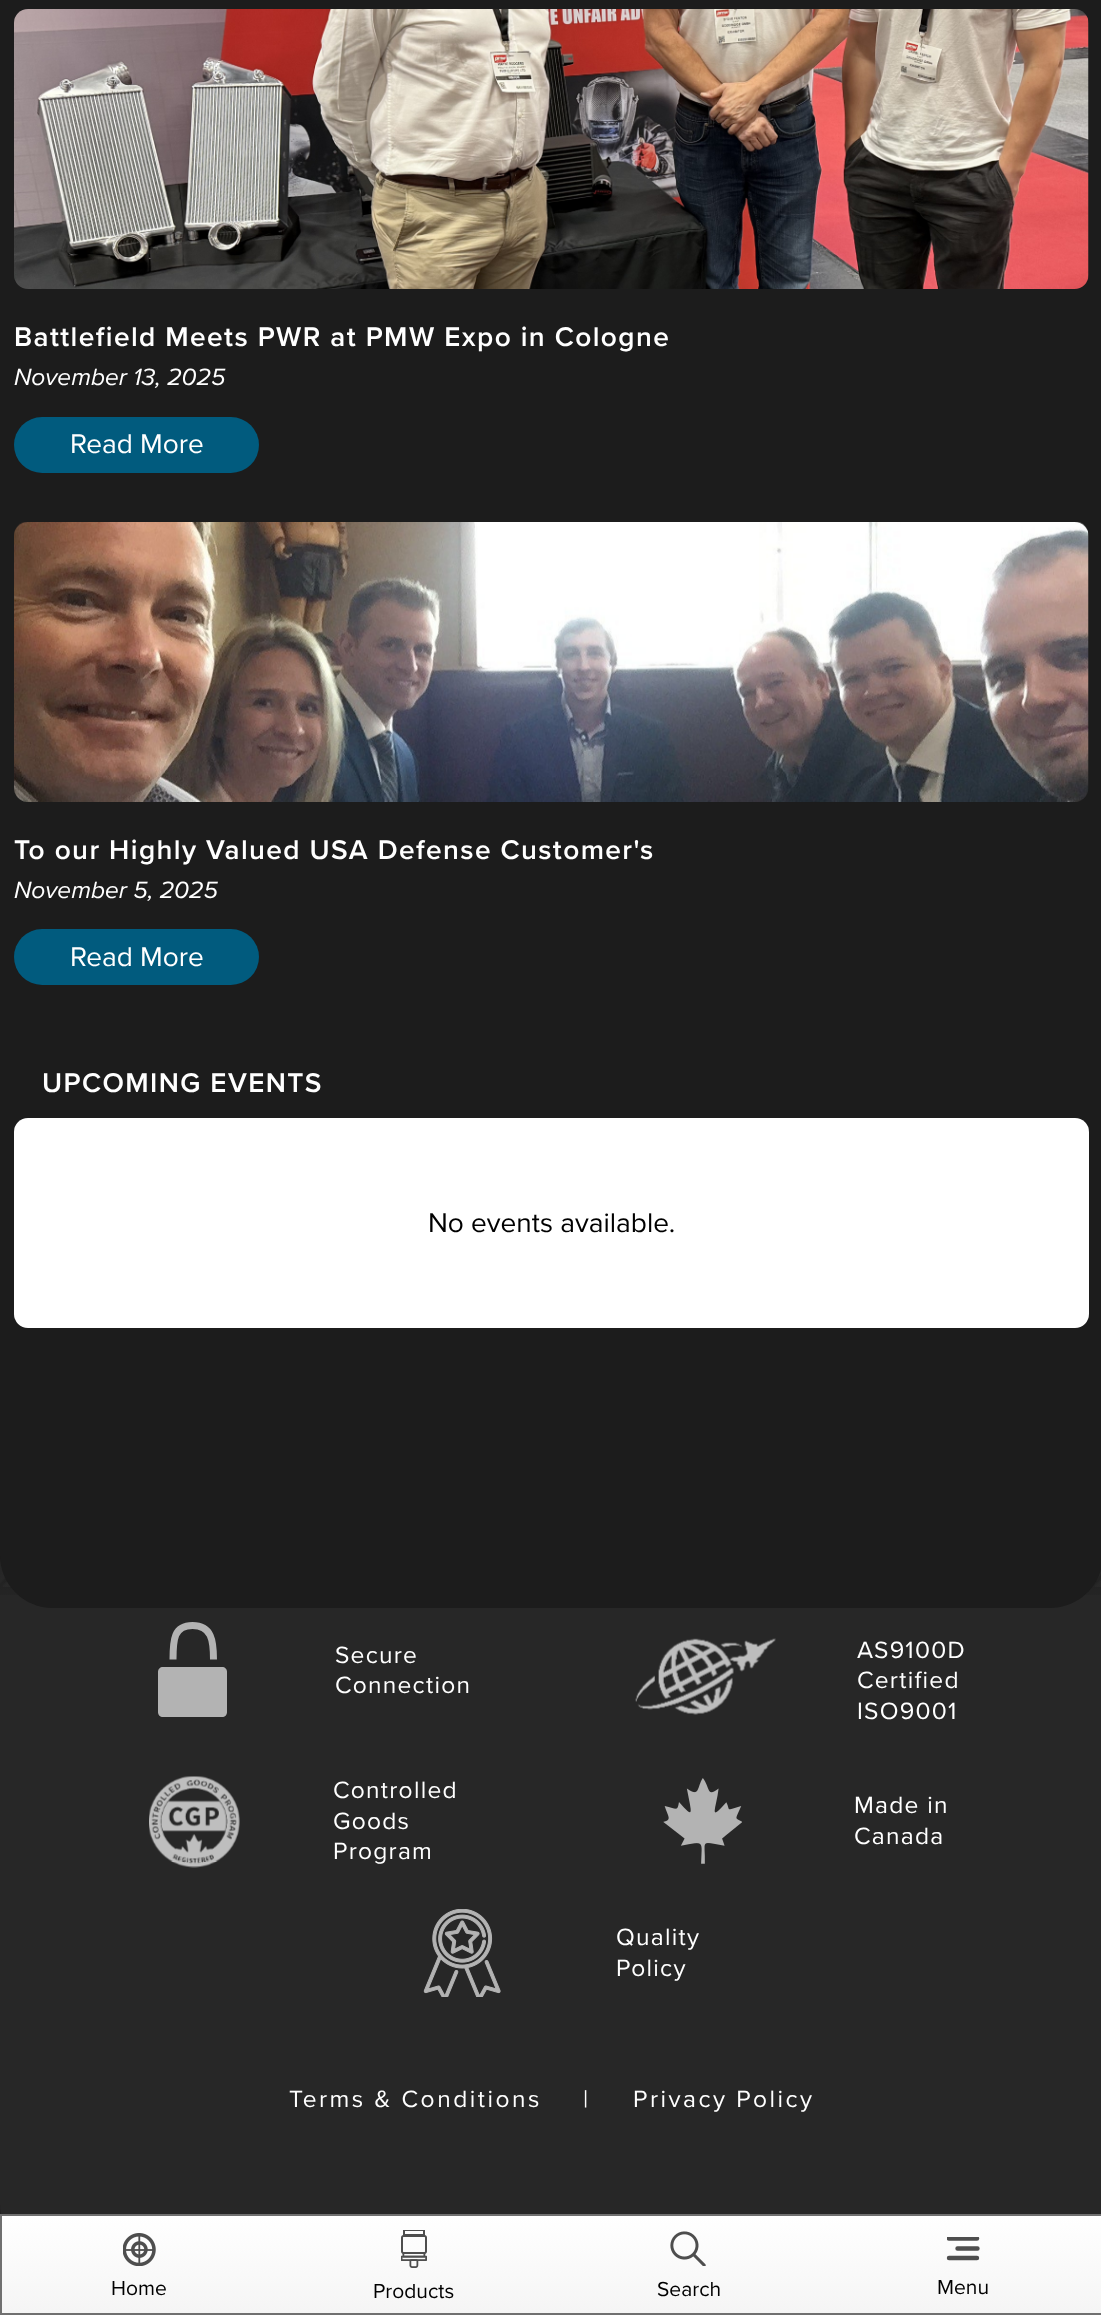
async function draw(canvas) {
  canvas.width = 1101;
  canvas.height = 2315;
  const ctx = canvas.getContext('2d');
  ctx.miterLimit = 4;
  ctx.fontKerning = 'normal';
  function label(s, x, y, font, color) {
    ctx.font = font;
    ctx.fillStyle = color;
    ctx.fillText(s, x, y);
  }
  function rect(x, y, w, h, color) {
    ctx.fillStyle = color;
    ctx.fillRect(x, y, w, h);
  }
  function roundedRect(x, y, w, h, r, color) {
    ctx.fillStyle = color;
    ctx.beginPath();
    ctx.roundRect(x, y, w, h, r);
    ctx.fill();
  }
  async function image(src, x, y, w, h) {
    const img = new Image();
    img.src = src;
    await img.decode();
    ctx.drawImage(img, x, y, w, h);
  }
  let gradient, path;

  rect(0, 0, 1101, 2315, '#1c1c1c');
  rect(0, 1555, 1101, 32, '#2d2d2d');
  await image('assets/img3.png', 0, 1555, 1101, 32);
  ctx.fillStyle = '#272727';
  path = new Path2D('M0 1587H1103V2205C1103 2234.5 1079.5 2258 1050 2258H53C23.5 2258 0 2234.5 0 2205Z');
  ctx.fill(path);
  gradient = ctx.createLinearGradient(551, -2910, 551, 1608);
  gradient.addColorStop(0, '#1c1c1c');
  gradient.addColorStop(0.95, '#1c1c1c');
  gradient.addColorStop(1, '#00000003');
  ctx.fillStyle = gradient;
  ctx.fillRect(0, 1406, 1101, 189);
  await image('assets/img1.png', 14, 9, 1075, 280);
  ctx.letterSpacing = '1.4px';
  label('Battlefield Meets PWR at PMW Expo in Cologne', 14, 346, '600 28px Proxima Nova', '#fff');
  ctx.letterSpacing = '0px';
  label('November 13, 2025', 14, 385, 'italic 24.5px Proxima Nova', '#fff');
  roundedRect(14, 417, 245, 56, 28, '#015b7e');
  label('Read More', 70, 453, '28px Proxima Nova', '#fff');
  await image('assets/img2.png', 14, 522, 1075, 280);
  ctx.letterSpacing = '1.4px';
  label('To our Highly Valued USA Defense Customer\'s', 14, 859, '600 28px Proxima Nova', '#fff');
  ctx.letterSpacing = '0px';
  label('November 5, 2025', 14, 898, 'italic 24.5px Proxima Nova', '#fff');
  roundedRect(14, 929, 245, 56, 28, '#015b7e');
  label('Read More', 70, 966, '28px Proxima Nova', '#fff');
  ctx.letterSpacing = '1.4px';
  label('UPCOMING EVENTS', 42, 1092, '600 28px Proxima Nova', '#fff');
  roundedRect(14, 1118, 1075, 210, 14, '#fff');
  ctx.letterSpacing = '0px';
  label('No events available.', 428, 1232, '28px Proxima Nova', '#000');
  ctx.fillStyle = '#1c1c1c';
  path = new Path2D('M0 1328H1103V1555C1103 1584.5 1079.5 1608 1050 1608H53C23.5 1608 0 1584.5 0 1555Z');
  ctx.fill(path);
  ctx.fillStyle = '#b3b3b3';
  path = new Path2D('M163 1667H222C225 1667 227 1669 227 1672V1712C227 1715 225 1717 222 1717H163C160 1717 158 1715 158 1712V1672C158 1669 160 1667 163 1667Z');
  ctx.fill(path);
  path = new Path2D('M173 1659.5C173 1639.5 174 1625.5 192.5 1625.5C211.5 1625.5 213.5 1640.5 213.5 1659.5');
  ctx.strokeStyle = '#b3b3b3';
  ctx.lineWidth = 7;
  ctx.lineJoin = 'round';
  ctx.stroke(path);
  ctx.letterSpacing = '1.25px';
  label('Secure', 335, 1663, '24.5px Proxima Nova', '#fff');
  label('Connection', 335, 1693, '24.5px Proxima Nova', '#fff');
  await image('assets/img4.png', 635, 1638, 141, 77);
  label('AS9100D', 857, 1658, '24.5px Proxima Nova', '#fff');
  label('Certified', 857, 1688, '24.5px Proxima Nova', '#fff');
  label('ISO9001', 857, 1719, '24.5px Proxima Nova', '#fff');
  await image('assets/img5.png', 149, 1776, 91, 92);
  label('Controlled', 333, 1798, '24.5px Proxima Nova', '#fff');
  label('Goods', 333, 1829, '24.5px Proxima Nova', '#fff');
  label('Program', 333, 1859, '24.5px Proxima Nova', '#fff');
  await image('assets/img6.png', 663, 1778, 79, 86);
  label('Made in', 854, 1813, '24.5px Proxima Nova', '#fff');
  label('Canada', 854, 1844, '24.5px Proxima Nova', '#fff');
  await image('assets/img7.png', 423, 1909, 78, 88);
  label('Quality', 616, 1945, '24.5px Proxima Nova', '#fff');
  label('Policy', 616, 1976, '24.5px Proxima Nova', '#fff');
  ctx.letterSpacing = '2.5px';
  label('Terms & Conditions', 289, 2107, '24.5px Proxima Nova', '#fff');
  label('|', 583, 2107, '24.5px Proxima Nova', '#fff');
  label('Privacy Policy', 633, 2107, '24.5px Proxima Nova', '#fff');
  gradient = ctx.createLinearGradient(551, 2216, 551, 2314);
  gradient.addColorStop(0, '#fff');
  gradient.addColorStop(1, '#f5f5f5');
  ctx.fillStyle = gradient;
  ctx.fillRect(2, 2216, 1099, 97);
  ctx.strokeStyle = '#707070';
  ctx.lineWidth = 2;
  ctx.lineJoin = 'miter';
  ctx.strokeRect(1, 2215, 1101, 99);
  await image('assets/img8.png', 123, 2233, 33, 33);
  ctx.letterSpacing = '0px';
  label('Home', 111, 2295, '21px Proxima Nova', '#000');
  await image('assets/img9.png', 401, 2230, 26, 38);
  label('Products', 373, 2298, '21px Proxima Nova', '#000');
  await image('assets/img10.png', 670, 2231, 36, 35);
  label('Search', 657, 2296, '21px Proxima Nova', '#000');
  ctx.save();
  ctx.beginPath();
  ctx.rect(947, 2237, 33, 24);
  ctx.clip();
  path = new Path2D('M949 2238.5H977');
  ctx.strokeStyle = '#4e4e4e';
  ctx.lineWidth = 4.4;
  ctx.lineCap = 'round';
  ctx.stroke(path);
  ctx.restore();
  path = new Path2D('M957.5 2248.5H977.5M949 2258H977');
  ctx.strokeStyle = '#4e4e4e';
  ctx.lineWidth = 4.4;
  ctx.lineCap = 'round';
  ctx.stroke(path);
  label('Menu', 937, 2294, '21px Proxima Nova', '#000');
}

draw(document.querySelector('canvas'));
